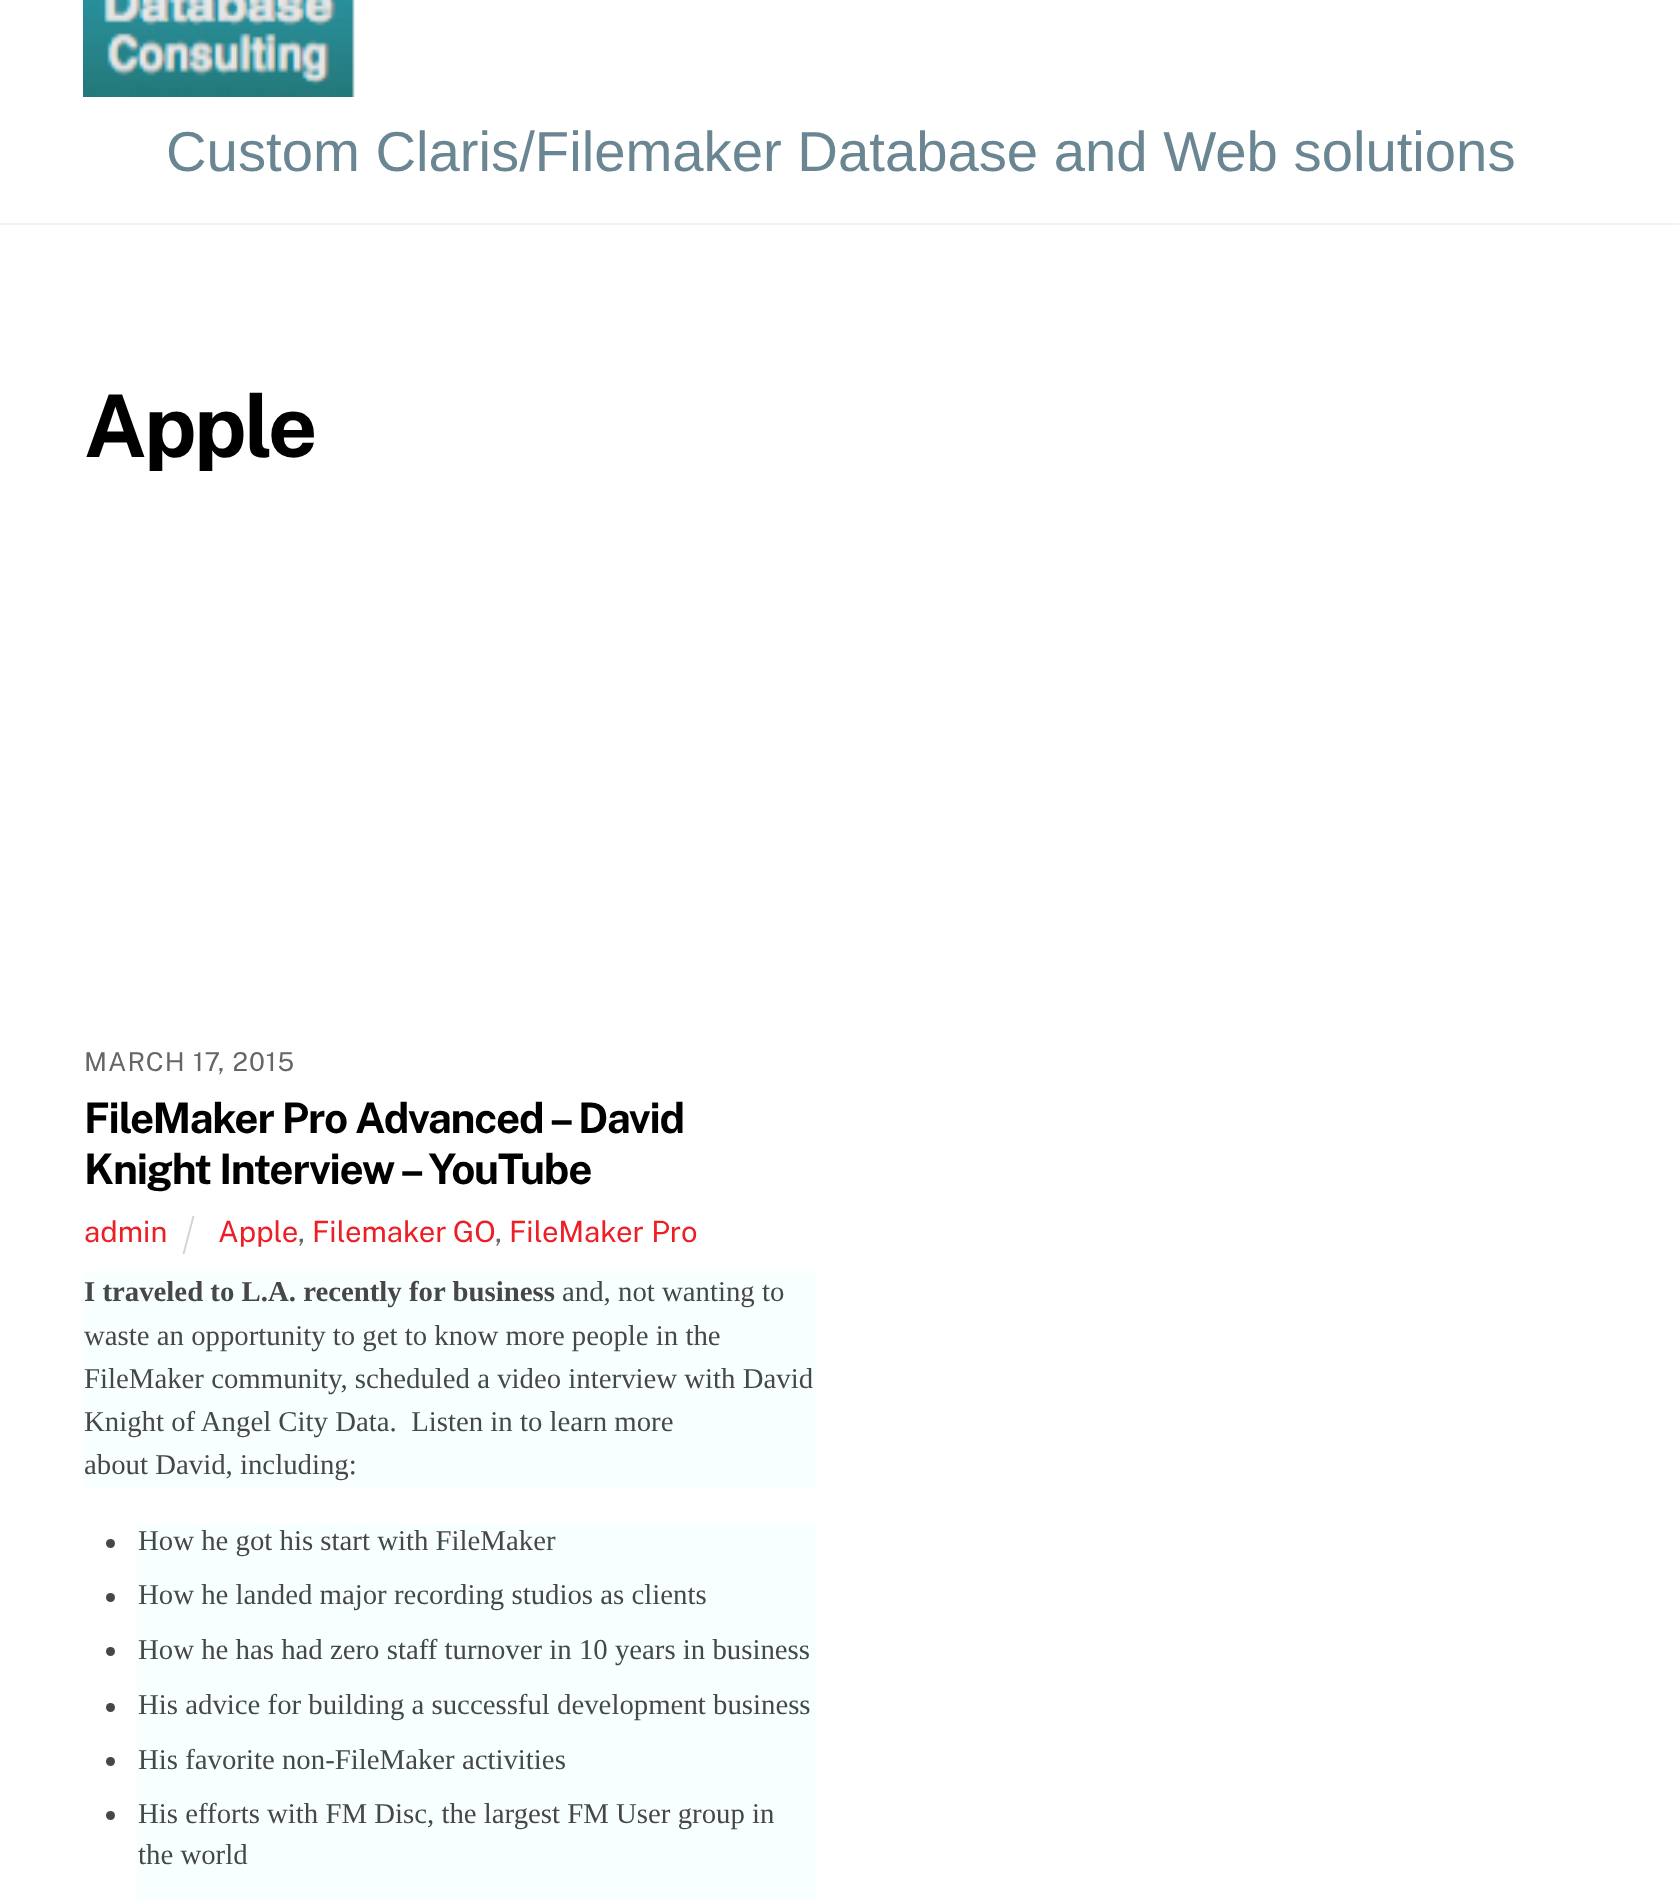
async function draw(canvas) {
  canvas.width = 1679;
  canvas.height = 1900;
  const ctx = canvas.getContext('2d');
  ctx.miterLimit = 4;
  ctx.fontKerning = 'normal';
  function label(s, x, y, font, color) {
    ctx.font = font;
    ctx.fillStyle = color;
    ctx.fillText(s, x, y);
  }
  function rect(x, y, w, h, color) {
    ctx.fillStyle = color;
    ctx.fillRect(x, y, w, h);
  }
  async function image(src, x, y, w, h) {
    const img = new Image();
    img.src = src;
    await img.decode();
    ctx.drawImage(img, x, y, w, h);
  }
  let path;

  rect(0, 0, 1679, 1900, '#fff');
  rect(0, 223, 1679, 2, '#f2f2f2');
  await image('assets/img1.png', 83, 0, 272, 97);
  label('Custom Claris/Filemaker Database and Web solutions', 166, 171, '56.25px Liberation Sans', '#6a8692');
  ctx.letterSpacing = '-2.5px';
  label('Apple', 84, 457, 'bold 86.5px Public Sans', '#000');
  ctx.letterSpacing = '1px';
  label('MARCH 17, 2015', 84, 1071, '26px Public Sans', '#666');
  ctx.letterSpacing = '-1.25px';
  label('FileMaker Pro Advanced – David', 84, 1133, 'bold 42.1px Public Sans', '#000');
  label('Knight Interview – YouTube', 84, 1184, 'bold 42.1px Public Sans', '#000');
  ctx.letterSpacing = '0px';
  label('admin', 84, 1242, '29.25px Public Sans', '#ed1e24');
  ctx.fillStyle = '#d3d3d3';
  path = new Path2D('M192.5 1216H194.5L184.5 1254H182.5Z');
  ctx.fill(path);
  label('Apple', 218, 1242, '29.25px Public Sans', '#ed1e24');
  label(',', 298, 1242, '29.25px Public Sans', '#666');
  ctx.wordSpacing = '-1px';
  label('Filemaker GO', 312, 1242, '29.25px Public Sans', '#ed1e24');
  ctx.wordSpacing = '0px';
  label(',', 495, 1242, '29.25px Public Sans', '#666');
  label('FileMaker Pro', 509, 1242, '29.25px Public Sans', '#ed1e24');
  rect(83, 1271, 734, 216, '#f7ffff');
  label('I traveled to L.A. recently for business', 84, 1301, 'bold 28.8px Liberation Serif', '#474747');
  label('and, not wanting to', 562, 1301, '28.8px Liberation Serif', '#474747');
  label('waste an opportunity to get to know more people in the', 84, 1345, '28.8px Liberation Serif', '#474747');
  label('FileMaker community, scheduled a video interview with David', 84, 1388, '28.8px Liberation Serif', '#474747');
  label('Knight of Angel City Data.  Listen in to learn more', 84, 1431, '28.8px Liberation Serif', '#474747');
  label('about David, including:', 84, 1474, '28.8px Liberation Serif', '#474747');
  rect(137, 1523, 680, 377, '#f7ffff');
  ctx.fillStyle = '#474747';
  ctx.beginPath();
  ctx.arc(110.5, 1543.5, 4.5, 0, 2 * Math.PI);
  ctx.fill();
  label('How he got his start with FileMaker', 138, 1550, '28.8px Liberation Serif', '#474747');
  ctx.beginPath();
  ctx.arc(110.5, 1597.5, 4.5, 0, 2 * Math.PI);
  ctx.fill();
  label('How he landed major recording studios as clients', 138, 1604, '28.8px Liberation Serif', '#474747');
  ctx.beginPath();
  ctx.arc(110.5, 1651.5, 4.5, 0, 2 * Math.PI);
  ctx.fill();
  label('How he has had zero staff turnover in 10 years in business', 138, 1659, '28.8px Liberation Serif', '#474747');
  ctx.beginPath();
  ctx.arc(110.5, 1707.5, 4.5, 0, 2 * Math.PI);
  ctx.fill();
  label('His advice for building a successful development business', 138, 1714, '28.8px Liberation Serif', '#474747');
  ctx.beginPath();
  ctx.arc(110.5, 1761.5, 4.5, 0, 2 * Math.PI);
  ctx.fill();
  label('His favorite non-FileMaker activities', 138, 1769, '28.8px Liberation Serif', '#474747');
  ctx.beginPath();
  ctx.arc(110.5, 1815.5, 4.5, 0, 2 * Math.PI);
  ctx.fill();
  label('His efforts with FM Disc, the largest FM User group in', 138, 1823, '28.8px Liberation Serif', '#474747');
  label('the world', 138, 1864, '28.8px Liberation Serif', '#474747');
}

draw(document.querySelector('canvas'));
